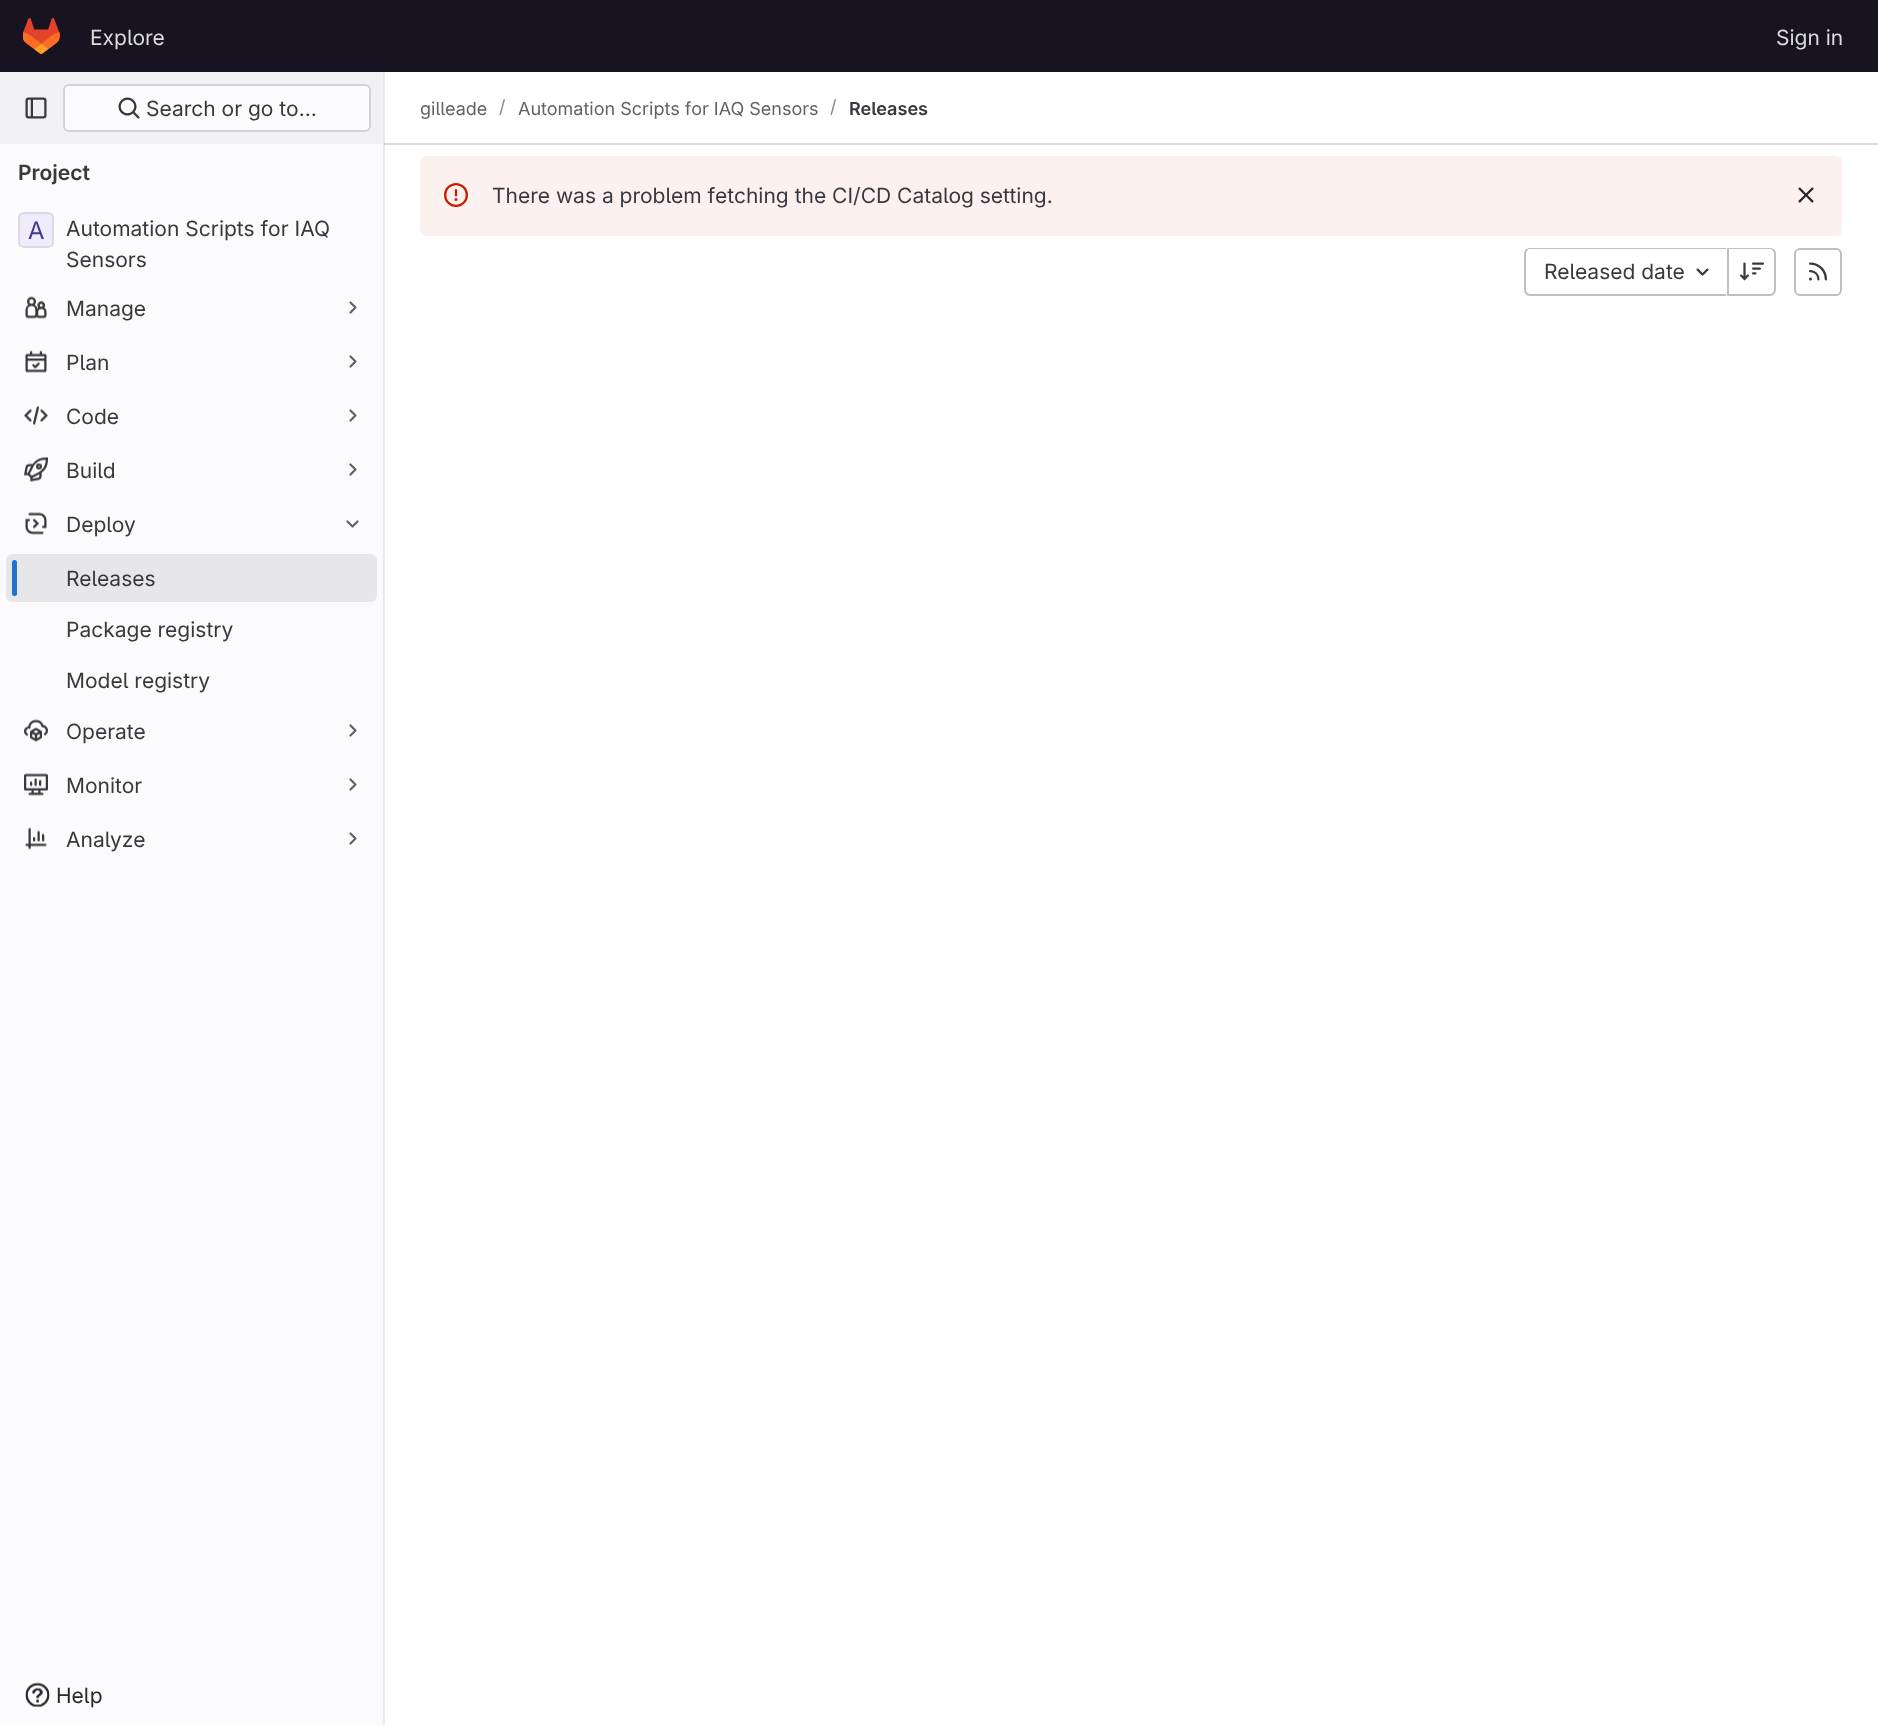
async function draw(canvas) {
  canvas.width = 1878;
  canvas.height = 1725;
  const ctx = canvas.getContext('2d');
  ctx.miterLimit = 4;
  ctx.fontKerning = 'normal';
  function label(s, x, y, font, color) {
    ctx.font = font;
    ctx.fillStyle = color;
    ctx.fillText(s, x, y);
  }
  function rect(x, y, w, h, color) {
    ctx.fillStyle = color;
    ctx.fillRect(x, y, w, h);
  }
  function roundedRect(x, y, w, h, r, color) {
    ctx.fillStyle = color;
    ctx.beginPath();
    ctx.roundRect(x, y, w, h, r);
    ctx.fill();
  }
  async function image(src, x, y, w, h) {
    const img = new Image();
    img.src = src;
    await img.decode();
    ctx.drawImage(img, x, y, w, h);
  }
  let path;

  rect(0, 0, 1878, 1725, '#fff');
  rect(384, 72, 1, 1653, '#ebebeb');
  rect(0, 0, 1878, 72, '#171321');
  await image('assets/img1.png', 23, 18, 37, 36);
  label('Explore', 90, 45, '21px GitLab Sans', '#dcdcde');
  label('Sign in', 1776, 45, '21px GitLab Sans', '#dcdcde');
  rect(0, 144, 383, 1581, '#fbfafd');
  rect(383, 72, 1, 1653, '#e7e6e9');
  rect(0, 72, 383, 72, '#f1f0f3');
  await image('assets/img2.png', 25, 97, 22, 22);
  ctx.fillStyle = '#fbfafd';
  ctx.beginPath();
  ctx.roundRect(64, 85, 306, 46, 5);
  ctx.fill();
  ctx.strokeStyle = '#d4d3d5';
  ctx.lineWidth = 2;
  ctx.stroke();
  await image('assets/img3.png', 118, 97, 22, 22);
  label('Search or go to…', 146, 116, '21px GitLab Sans', '#3a383f');
  label('Project', 18, 180, '600 21px GitLab Sans', '#3a383f');
  roundedRect(18, 212, 36, 36, 6, '#efebfa');
  ctx.beginPath();
  ctx.roundRect(19, 213, 34, 34, 5);
  ctx.strokeStyle = '#05050614';
  ctx.stroke();
  label('A', 28, 239, '24px "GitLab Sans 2"', '#453894');
  label('Automation Scripts for IAQ', 66, 236, '21px GitLab Sans', '#3a383f');
  label('Sensors', 66, 267, '21px GitLab Sans', '#3a383f');
  await image('assets/img4.png', 25, 296, 22, 23);
  label('Manage', 66, 316, '21px GitLab Sans', '#3a383f');
  path = new Path2D('M350.5 302.5L355.5 307.5L350.5 312.5');
  ctx.strokeStyle = '#626168';
  ctx.lineWidth = 2.2;
  ctx.lineCap = 'round';
  ctx.lineJoin = 'round';
  ctx.stroke(path);
  await image('assets/img5.png', 25, 350, 22, 23);
  label('Plan', 66, 370, '21px GitLab Sans', '#3a383f');
  path = new Path2D('M350.5 356.5L355.5 361.5L350.5 366.5');
  ctx.stroke(path);
  await image('assets/img6.png', 24, 406, 24, 19);
  label('Code', 66, 424, '21px GitLab Sans', '#3a383f');
  path = new Path2D('M350.5 410.5L355.5 415.5L350.5 420.5');
  ctx.stroke(path);
  await image('assets/img7.png', 24, 457, 24, 25);
  label('Build', 66, 478, '21px GitLab Sans', '#3a383f');
  path = new Path2D('M350.5 464.5L355.5 469.5L350.5 474.5');
  ctx.stroke(path);
  await image('assets/img8.png', 25, 512, 22, 23);
  label('Deploy', 66, 532, '21px GitLab Sans', '#3a383f');
  path = new Path2D('M357.5 521.5L352.5 526.5L347.5 521.5');
  ctx.stroke(path);
  roundedRect(6, 554, 371, 48, 6, '#e7e6e9');
  roundedRect(12, 560, 5, 36, 2.5, '#1f75cb');
  label('Releases', 66, 586, '21px GitLab Sans', '#3a383f');
  label('Package registry', 66, 637, '21px GitLab Sans', '#3a383f');
  label('Model registry', 66, 688, '21px GitLab Sans', '#3a383f');
  await image('assets/img9.png', 24, 719, 24, 23);
  label('Operate', 66, 739, '21px GitLab Sans', '#3a383f');
  path = new Path2D('M350.5 725.5L355.5 730.5L350.5 735.5');
  ctx.stroke(path);
  await image('assets/img10.png', 24, 773, 24, 23);
  label('Monitor', 66, 793, '21px GitLab Sans', '#3a383f');
  path = new Path2D('M350.5 779.5L355.5 784.5L350.5 789.5');
  ctx.stroke(path);
  await image('assets/img11.png', 25, 827, 22, 23);
  label('Analyze', 66, 847, '21px GitLab Sans', '#3a383f');
  path = new Path2D('M350.5 833.5L355.5 838.5L350.5 843.5');
  ctx.stroke(path);
  await image('assets/img12.png', 25, 1682, 25, 25);
  label('Help', 56, 1703, '21px GitLab Sans', '#28272d');
  rect(384, 143, 1494, 2, '#dcdcde');
  rect(384, 143, 1, 2, '#cbcbcd');
  label('gilleade', 420, 115, '18px GitLab Sans', '#626168');
  label('/', 499, 113, '18px GitLab Sans', '#89888d');
  label('Automation Scripts for IAQ Sensors', 518, 115, '18px GitLab Sans', '#626168');
  label('/', 830, 113, '18px GitLab Sans', '#89888d');
  label('Releases', 849, 115, '600 18px GitLab Sans', '#3a383f');
  roundedRect(420, 156, 1422, 80, 6, '#fcf1ef');
  await image('assets/img13.png', 444, 183, 24, 24);
  label('There was a problem fetching the CI/CD Catalog setting.', 492, 203, '21px GitLab Sans', '#3a383f');
  await image('assets/img14.png', 1798, 187, 16, 16);
  ctx.fillStyle = '#bfbfc3';
  path = new Path2D('M1530 248H1726V296H1530C1527 296 1524 293 1524 290V254C1524 250 1527 248 1530 248ZM1530 249H1726V294H1530C1528 294 1526 292 1526 290V254C1526 251 1528 249 1530 249Z');
  ctx.fill(path, 'evenodd');
  label('Released date', 1544, 279, '21px GitLab Sans', '#3a383f');
  await image('assets/img15.png', 1696, 268, 13, 8);
  ctx.fillStyle = '#bfbfc3';
  path = new Path2D('M1728 248H1770C1773 248 1776 250 1776 254V290C1776 293 1773 296 1770 296H1728ZM1728 249H1770C1772 249 1774 251 1774 254V290C1774 292 1772 294 1770 294H1728Z');
  ctx.fill(path, 'evenodd');
  rect(1727, 248, 2, 48, '#bfbfc3');
  await image('assets/img16.png', 1740, 262, 24, 19);
  ctx.beginPath();
  ctx.roundRect(1795, 249, 46, 46, 5);
  ctx.strokeStyle = '#bfbfc3';
  ctx.lineWidth = 2;
  ctx.lineJoin = 'miter';
  ctx.stroke();
  await image('assets/img17.png', 1809, 262, 18, 19);
}

draw(document.querySelector('canvas'));
